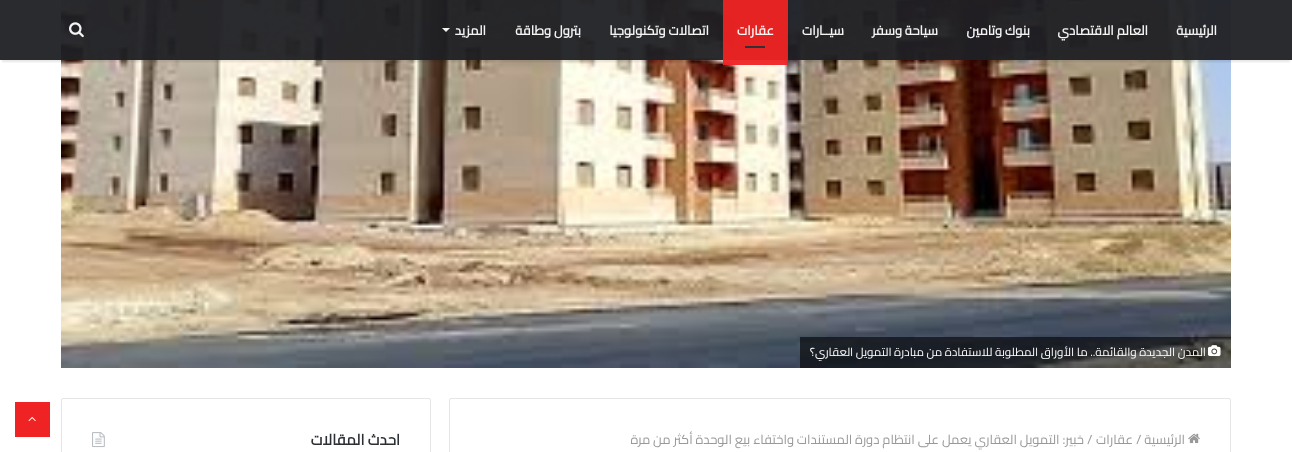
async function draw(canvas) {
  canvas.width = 1292;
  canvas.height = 452;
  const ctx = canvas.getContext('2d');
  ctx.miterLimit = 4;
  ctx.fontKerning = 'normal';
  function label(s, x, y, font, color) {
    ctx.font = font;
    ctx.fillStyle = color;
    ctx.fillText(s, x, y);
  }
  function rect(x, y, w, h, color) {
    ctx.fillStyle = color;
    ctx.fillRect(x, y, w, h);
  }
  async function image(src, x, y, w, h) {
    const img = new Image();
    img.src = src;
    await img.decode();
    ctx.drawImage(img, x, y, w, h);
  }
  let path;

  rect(0, 0, 1292, 452, '#fff');
  await image('assets/img2.png', 61, 0, 1170, 368);
  ctx.save();
  ctx.beginPath();
  ctx.rect(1, 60, 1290, 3);
  ctx.clip();
  ctx.fillStyle = '#0000001a';
  ctx.filter = 'blur(1px)';
  ctx.beginPath();
  ctx.rect(2, 6, 1288, 56);
  ctx.fill();
  ctx.filter = 'none';
  ctx.restore();
  rect(0, 0, 1292, 60, '#1f2024f2');
  ctx.direction = 'rtl';
  label('الرئيسية', 1217, 35, 'bold 13px Cairo', '#f4f4f4');
  label('العالم الاقتصادي', 1148, 35, 'bold 13px Cairo', '#f4f4f4');
  label('بنوك وتامين', 1030, 35, 'bold 13px Cairo', '#f4f4f4');
  label('سياحة وسفر', 938, 35, 'bold 13px Cairo', '#f4f4f4');
  label('سيــارات', 844, 35, 'bold 13px Cairo', '#f4f4f4');
  rect(723, 60, 65, 5, '#ef2323f2');
  rect(723, 0, 65, 60, '#ef2323f2');
  label('عقارات', 774, 35, 'bold 13px Cairo', '#fef4f4');
  rect(745, 46, 20, 2, '#352e33');
  label('اتصالات وتكنولوجيا', 709, 35, 'bold 13px Cairo', '#f4f4f4');
  label('بترول وطاقة', 581, 35, 'bold 13px Cairo', '#f4f4f4');
  label('المزيد', 486, 35, 'bold 13px Cairo', '#f4f4f4');
  ctx.fillStyle = '#fffffff2';
  path = new Path2D('M442 28H450L446 32Z');
  ctx.fill(path);
  await image('assets/img1.png', 69, 22, 15, 16);
  rect(800, 337, 431, 31, '#00000099');
  await image('assets/img3.png', 1208, 345, 13, 11);
  label('المدن الجديدة والقائمة.. ما الأوراق المطلوبة للاستفادة من مبادرة التمويل العقاري؟', 1206, 356, '11.7px Cairo', '#fff');
  rect(15, 402, 35, 35, '#ef2323');
  await image('assets/img4.png', 28, 416, 8, 6);
  ctx.beginPath();
  ctx.roundRect(449.5, 398.5, 781, 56, 1.5);
  ctx.strokeStyle = '#e6e6e6';
  ctx.stroke();
  await image('assets/img5.png', 1188, 433, 12, 11);
  label('الرئيسية', 1185, 444, '13px Cairo', '#999');
  ctx.direction = 'ltr';
  label('/', 1136, 444, '13px Cairo', '#999');
  ctx.direction = 'rtl';
  label('عقارات', 1133, 444, '13px Cairo', '#999');
  ctx.direction = 'ltr';
  label('/', 1087, 444, '13px Cairo', '#999');
  ctx.direction = 'rtl';
  label('خبير: التمويل العقاري يعمل على انتظام دورة المستندات واختفاء بيع الوحدة أكثر من مرة', 1084, 444, '13px Cairo', '#999');
  ctx.beginPath();
  ctx.roundRect(61.5, 398.5, 369, 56, 1.5);
  ctx.stroke();
  label('احدث المقالات', 400, 445, 'bold 15px Cairo', '#2c2f34');
  await image('assets/img6.png', 92, 432, 13, 16);
}

draw(document.querySelector('canvas'));
